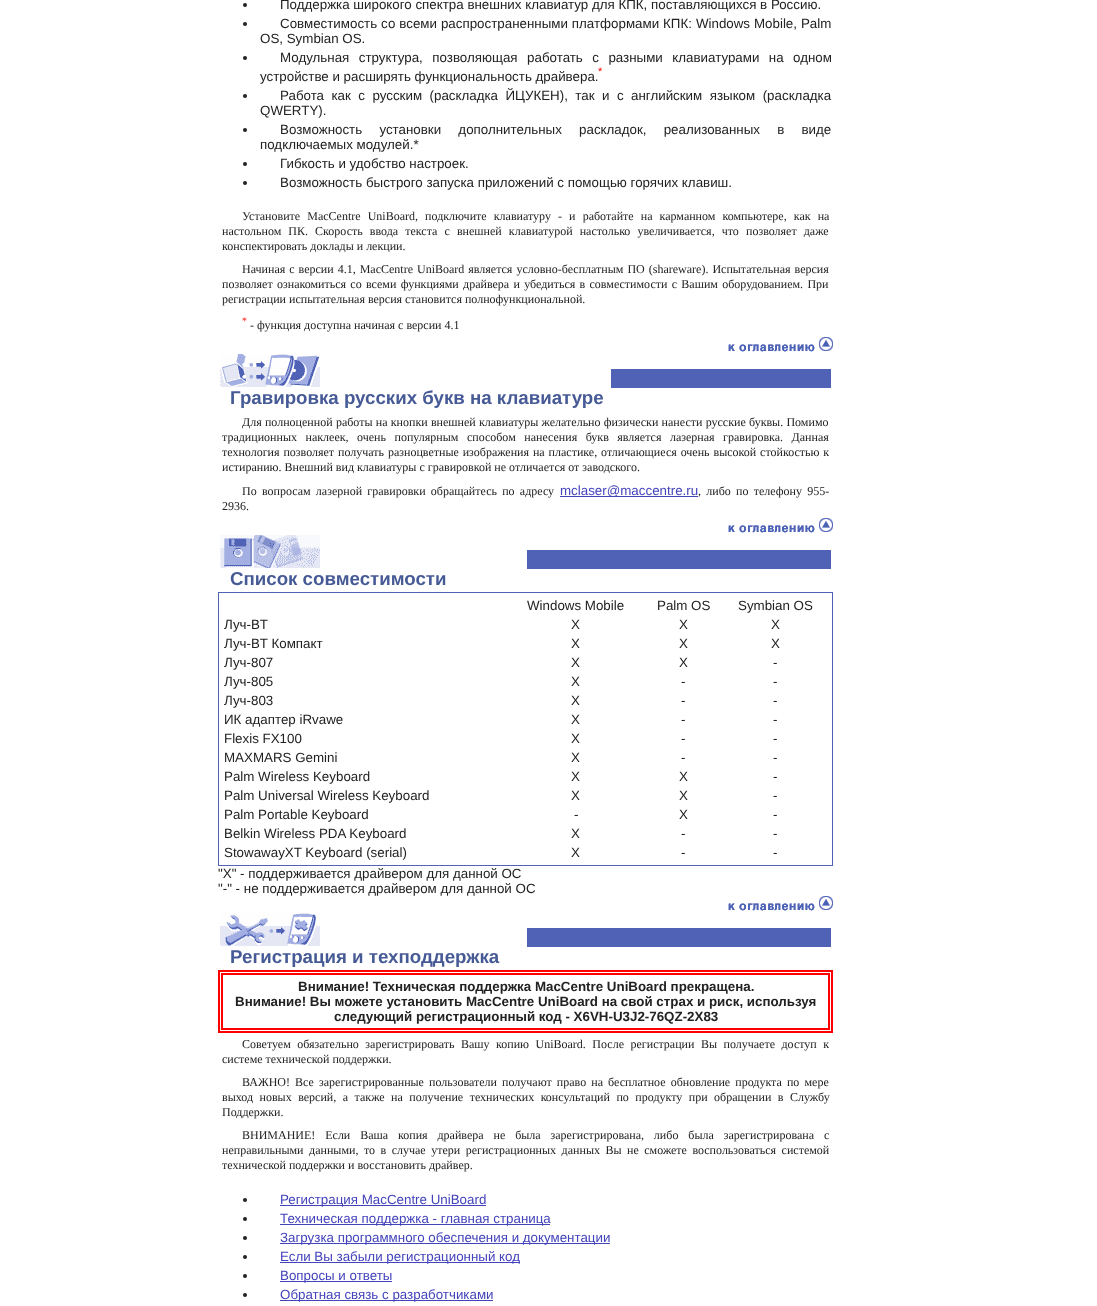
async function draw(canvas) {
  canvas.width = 1097;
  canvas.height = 1306;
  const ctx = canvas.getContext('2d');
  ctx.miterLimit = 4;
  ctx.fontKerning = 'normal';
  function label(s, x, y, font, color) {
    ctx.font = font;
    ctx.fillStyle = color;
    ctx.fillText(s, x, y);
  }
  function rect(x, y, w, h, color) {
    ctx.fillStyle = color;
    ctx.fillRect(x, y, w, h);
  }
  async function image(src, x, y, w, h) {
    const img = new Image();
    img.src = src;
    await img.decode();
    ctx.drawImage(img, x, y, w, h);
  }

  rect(0, 0, 1097, 1306, '#fff');
  ctx.fillStyle = '#222';
  ctx.beginPath();
  ctx.arc(245, 5, 2, 0, 2 * Math.PI);
  ctx.fill();
  label('Поддержка широкого спектра внешних клавиатур для КПК, поставляющихся в Россию.', 280, 9, '13.35px Liberation Sans', '#222');
  ctx.beginPath();
  ctx.arc(245, 24, 2, 0, 2 * Math.PI);
  ctx.fill();
  ctx.wordSpacing = '0.25px';
  label('Совместимость со всеми распространенными платформами КПК: Windows Mobile, Palm', 280, 28, '13.35px Liberation Sans', '#222');
  ctx.wordSpacing = '0px';
  label('OS, Symbian OS.', 260, 43, '13.35px Liberation Sans', '#222');
  ctx.beginPath();
  ctx.arc(245, 58, 2, 0, 2 * Math.PI);
  ctx.fill();
  ctx.wordSpacing = '5.75px';
  label('Модульная структура, позволяющая работать с разными клавиатурами на одном', 280, 62, '13.35px Liberation Sans', '#222');
  ctx.wordSpacing = '0px';
  label('*', 598, 75, '11px Liberation Sans', '#f00');
  label('устройстве и расширять функциональность драйвера.', 260, 81, '13.35px Liberation Sans', '#222');
  ctx.beginPath();
  ctx.arc(245, 96, 2, 0, 2 * Math.PI);
  ctx.fill();
  ctx.wordSpacing = '3.75px';
  label('Работа как с русским (раскладка ЙЦУКЕН), так и с английским языком (раскладка', 280, 100, '13.35px Liberation Sans', '#222');
  ctx.wordSpacing = '0px';
  label('QWERTY).', 260, 115, '13.35px Liberation Sans', '#222');
  ctx.beginPath();
  ctx.arc(245, 130, 2, 0, 2 * Math.PI);
  ctx.fill();
  ctx.wordSpacing = '13.5px';
  label('Возможность установки дополнительных раскладок, реализованных в виде', 280, 134, '13.35px Liberation Sans', '#222');
  ctx.wordSpacing = '0px';
  label('подключаемых модулей.*', 260, 149, '13.35px Liberation Sans', '#222');
  ctx.beginPath();
  ctx.arc(245, 164, 2, 0, 2 * Math.PI);
  ctx.fill();
  label('Гибкость и удобство настроек.', 280, 168, '13.35px Liberation Sans', '#222');
  ctx.beginPath();
  ctx.arc(245, 183, 2, 0, 2 * Math.PI);
  ctx.fill();
  label('Возможность быстрого запуска приложений с помощью горячих клавиш.', 280, 187, '13.35px Liberation Sans', '#222');
  ctx.wordSpacing = '4.1px';
  label('Установите MacCentre UniBoard, подключите клавиатуру - и работайте на карманном компьютере, как на', 242, 220, '12px Liberation Serif', '#222');
  label('настольном ПК. Скорость ввода текста с внешней клавиатурой настолько увеличивается, что позволяет даже', 222, 235, '12px Liberation Serif', '#222');
  ctx.wordSpacing = '0px';
  label('конспектировать доклады и лекции.', 222, 250, '12px Liberation Serif', '#222');
  ctx.wordSpacing = '1px';
  label('Начиная с версии 4.1, MacCentre UniBoard является условно-бесплатным ПО (shareware). Испытательная версия', 242, 273, '12px Liberation Serif', '#222');
  ctx.wordSpacing = '1.3px';
  label('позволяет ознакомиться со всеми функциями драйвера и убедиться в совместимости с Вашим оборудованием. При', 222, 288, '12px Liberation Serif', '#222');
  ctx.wordSpacing = '0px';
  label('регистрации испытательная версия становится полнофункциональной.', 222, 303, '12px Liberation Serif', '#222');
  label('*', 242, 324, '10px Liberation Serif', '#f00');
  label('- функция доступна начиная с версии 4.1', 250, 329, '12px Liberation Serif', '#222');
  await image('assets/img1.png', 728, 337, 105, 15);
  rect(611, 369, 220, 19, '#4f62b5');
  await image('assets/img2.png', 220, 354, 100, 33);
  label('Гравировка русских букв на клавиатуре', 230, 404, 'bold 18.7px Liberation Sans', '#465a96');
  ctx.wordSpacing = '0.25px';
  label('Для полноценной работы на кнопки внешней клавиатуры желательно физически нанести русские буквы. Помимо', 242, 426, '12px Liberation Serif', '#222');
  ctx.wordSpacing = '5.5px';
  label('традиционных наклеек, очень популярным способом нанесения букв является лазерная гравировка. Данная', 222, 441, '12px Liberation Serif', '#222');
  ctx.wordSpacing = '0.9px';
  label('технология позволяет получать разноцветные изображения на пластике, отличающиеся очень высокой стойкостью к', 222, 456, '12px Liberation Serif', '#222');
  ctx.wordSpacing = '0px';
  label('истиранию. Внешний вид клавиатуры с гравировкой не отличается от заводского.', 222, 471, '12px Liberation Serif', '#222');
  ctx.wordSpacing = '2.25px';
  label('По вопросам лазерной гравировки обращайтесь по адресу', 242, 495, '12px Liberation Serif', '#222');
  rect(560, 496, 138, 1, '#4343bc');
  ctx.wordSpacing = '0px';
  label('mclaser@maccentre.ru', 560, 495, '13.35px Liberation Sans', '#4343bc');
  ctx.wordSpacing = '2.25px';
  label(', либо по телефону 955-', 698, 495, '12px Liberation Serif', '#222');
  ctx.wordSpacing = '0px';
  label('2936.', 222, 510, '12px Liberation Serif', '#222');
  await image('assets/img1.png', 728, 518, 105, 15);
  rect(527, 550, 304, 19, '#4f62b5');
  await image('assets/img3.png', 220, 535, 100, 33);
  label('Список совместимости', 230, 585, 'bold 18.7px Liberation Sans', '#465a96');
  rect(218, 592, 615, 274, '#4f62b5');
  rect(219, 593, 613, 272, '#fff');
  label('Windows Mobile', 527, 610, '13.35px Liberation Sans', '#222');
  label('Palm OS', 657, 610, '13.35px Liberation Sans', '#222');
  label('Symbian OS', 738, 610, '13.35px Liberation Sans', '#222');
  label('Луч-BT', 224, 629, '13.35px Liberation Sans', '#222');
  label('X', 571, 629, '13.35px Liberation Sans', '#222');
  label('X', 679, 629, '13.35px Liberation Sans', '#222');
  label('X', 771, 629, '13.35px Liberation Sans', '#222');
  label('Луч-BT Компакт', 224, 648, '13.35px Liberation Sans', '#222');
  label('X', 571, 648, '13.35px Liberation Sans', '#222');
  label('X', 679, 648, '13.35px Liberation Sans', '#222');
  label('X', 771, 648, '13.35px Liberation Sans', '#222');
  label('Луч-807', 224, 667, '13.35px Liberation Sans', '#222');
  label('X', 571, 667, '13.35px Liberation Sans', '#222');
  label('X', 679, 667, '13.35px Liberation Sans', '#222');
  label('-', 773, 667, '13.35px Liberation Sans', '#222');
  label('Луч-805', 224, 686, '13.35px Liberation Sans', '#222');
  label('X', 571, 686, '13.35px Liberation Sans', '#222');
  label('-', 681, 686, '13.35px Liberation Sans', '#222');
  label('-', 773, 686, '13.35px Liberation Sans', '#222');
  label('Луч-803', 224, 705, '13.35px Liberation Sans', '#222');
  label('X', 571, 705, '13.35px Liberation Sans', '#222');
  label('-', 681, 705, '13.35px Liberation Sans', '#222');
  label('-', 773, 705, '13.35px Liberation Sans', '#222');
  label('ИК адаптер iRvawe', 224, 724, '13.35px Liberation Sans', '#222');
  label('X', 571, 724, '13.35px Liberation Sans', '#222');
  label('-', 681, 724, '13.35px Liberation Sans', '#222');
  label('-', 773, 724, '13.35px Liberation Sans', '#222');
  label('Flexis FX100', 224, 743, '13.35px Liberation Sans', '#222');
  label('X', 571, 743, '13.35px Liberation Sans', '#222');
  label('-', 681, 743, '13.35px Liberation Sans', '#222');
  label('-', 773, 743, '13.35px Liberation Sans', '#222');
  label('MAXMARS Gemini', 224, 762, '13.35px Liberation Sans', '#222');
  label('X', 571, 762, '13.35px Liberation Sans', '#222');
  label('-', 681, 762, '13.35px Liberation Sans', '#222');
  label('-', 773, 762, '13.35px Liberation Sans', '#222');
  label('Palm Wireless Keyboard', 224, 781, '13.35px Liberation Sans', '#222');
  label('X', 571, 781, '13.35px Liberation Sans', '#222');
  label('X', 679, 781, '13.35px Liberation Sans', '#222');
  label('-', 773, 781, '13.35px Liberation Sans', '#222');
  label('Palm Universal Wireless Keyboard', 224, 800, '13.35px Liberation Sans', '#222');
  label('X', 571, 800, '13.35px Liberation Sans', '#222');
  label('X', 679, 800, '13.35px Liberation Sans', '#222');
  label('-', 773, 800, '13.35px Liberation Sans', '#222');
  label('Palm Portable Keyboard', 224, 819, '13.35px Liberation Sans', '#222');
  label('-', 574, 819, '13.35px Liberation Sans', '#222');
  label('X', 679, 819, '13.35px Liberation Sans', '#222');
  label('-', 773, 819, '13.35px Liberation Sans', '#222');
  label('Belkin Wireless PDA Keyboard', 224, 838, '13.35px Liberation Sans', '#222');
  label('X', 571, 838, '13.35px Liberation Sans', '#222');
  label('-', 681, 838, '13.35px Liberation Sans', '#222');
  label('-', 773, 838, '13.35px Liberation Sans', '#222');
  label('StowawayXT Keyboard (serial)', 224, 857, '13.35px Liberation Sans', '#222');
  label('X', 571, 857, '13.35px Liberation Sans', '#222');
  label('-', 681, 857, '13.35px Liberation Sans', '#222');
  label('-', 773, 857, '13.35px Liberation Sans', '#222');
  label('"Х" - поддерживается драйвером для данной ОС', 218, 878, '13.35px Liberation Sans', '#222');
  label('"-" - не поддерживается драйвером для данной ОС', 218, 893, '13.35px Liberation Sans', '#222');
  await image('assets/img1.png', 728, 896, 105, 15);
  rect(527, 928, 304, 19, '#4f62b5');
  await image('assets/img4.png', 220, 913, 100, 33);
  label('Регистрация и техподдержка', 230, 963, 'bold 18.7px Liberation Sans', '#465a96');
  ctx.strokeStyle = '#f00';
  ctx.lineWidth = 2;
  ctx.strokeRect(219, 971, 613, 61);
  ctx.strokeRect(222, 974, 607, 55);
  label('Внимание! Техническая поддержка MacCentre UniBoard прекращена.', 298, 991, 'bold 13.35px Liberation Sans', '#222');
  label('Внимание! Вы можете установить MacCentre UniBoard на свой страх и риск, используя', 235, 1006, 'bold 13.35px Liberation Sans', '#222');
  label('следующий регистрационный код - X6VH-U3J2-76QZ-2X83', 334, 1021, 'bold 13.35px Liberation Sans', '#222');
  ctx.wordSpacing = '3.5px';
  label('Советуем обязательно зарегистрировать Вашу копию UniBoard. После регистрации Вы получаете доступ к', 242, 1048, '12px Liberation Serif', '#222');
  ctx.wordSpacing = '0px';
  label('системе технической поддержки.', 222, 1063, '12px Liberation Serif', '#222');
  ctx.wordSpacing = '2.1px';
  label('ВАЖНО! Все зарегистрированные пользователи получают право на бесплатное обновление продукта по мере', 242, 1086, '12px Liberation Serif', '#222');
  ctx.wordSpacing = '3.5px';
  label('выход новых версий, а также на получение технических консультаций по продукту при обращении в Службу', 222, 1101, '12px Liberation Serif', '#222');
  ctx.wordSpacing = '0px';
  label('Поддержки.', 222, 1116, '12px Liberation Serif', '#222');
  ctx.wordSpacing = '6.9px';
  label('ВНИМАНИЕ! Если Ваша копия драйвера не была зарегистрирована, либо была зарегистрирована с', 242, 1139, '12px Liberation Serif', '#222');
  ctx.wordSpacing = '2.5px';
  label('неправильными данными, то в случае утери регистрационных данных Вы не сможете воспользоваться системой', 222, 1154, '12px Liberation Serif', '#222');
  ctx.wordSpacing = '0px';
  label('технической поддержки и восстановить драйвер.', 222, 1169, '12px Liberation Serif', '#222');
  ctx.beginPath();
  ctx.arc(245, 1200, 2, 0, 2 * Math.PI);
  ctx.fill();
  rect(280, 1205, 206, 1, '#4343bc');
  label('Регистрация MacCentre UniBoard', 280, 1204, '13.35px Liberation Sans', '#4343bc');
  ctx.fillStyle = '#222';
  ctx.beginPath();
  ctx.arc(245, 1219, 2, 0, 2 * Math.PI);
  ctx.fill();
  rect(280, 1224, 270, 1, '#4343bc');
  label('Техническая поддержка - главная страница', 280, 1223, '13.35px Liberation Sans', '#4343bc');
  ctx.fillStyle = '#222';
  ctx.beginPath();
  ctx.arc(245, 1238, 2, 0, 2 * Math.PI);
  ctx.fill();
  rect(280, 1243, 330, 1, '#4343bc');
  label('Загрузка программного обеспечения и документации', 280, 1242, '13.35px Liberation Sans', '#4343bc');
  ctx.fillStyle = '#222';
  ctx.beginPath();
  ctx.arc(245, 1257, 2, 0, 2 * Math.PI);
  ctx.fill();
  rect(280, 1262, 240, 1, '#4343bc');
  label('Если Вы забыли регистрационный код', 280, 1261, '13.35px Liberation Sans', '#4343bc');
  ctx.fillStyle = '#222';
  ctx.beginPath();
  ctx.arc(245, 1276, 2, 0, 2 * Math.PI);
  ctx.fill();
  rect(280, 1281, 112, 1, '#4343bc');
  label('Вопросы и ответы', 280, 1280, '13.35px Liberation Sans', '#4343bc');
  ctx.fillStyle = '#222';
  ctx.beginPath();
  ctx.arc(245, 1295, 2, 0, 2 * Math.PI);
  ctx.fill();
  rect(280, 1300, 213, 1, '#4343bc');
  label('Обратная связь с разработчиками', 280, 1299, '13.35px Liberation Sans', '#4343bc');
}

draw(document.querySelector('canvas'));
